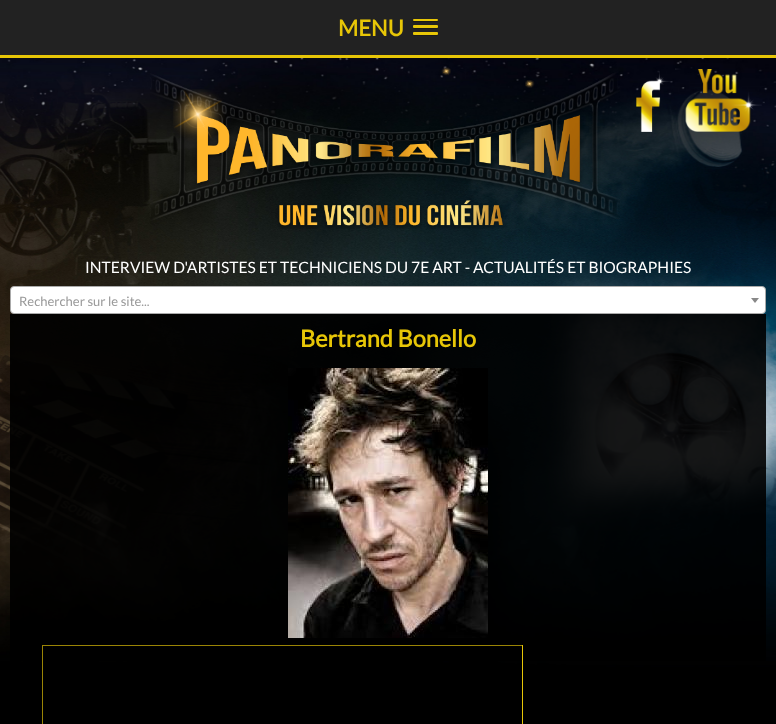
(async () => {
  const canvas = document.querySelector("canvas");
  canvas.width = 776;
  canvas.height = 724;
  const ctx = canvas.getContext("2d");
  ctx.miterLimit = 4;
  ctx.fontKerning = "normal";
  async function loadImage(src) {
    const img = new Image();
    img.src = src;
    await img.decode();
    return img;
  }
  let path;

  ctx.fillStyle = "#ffffff";
  ctx.fillRect(0, 0, 776, 724);
  ctx.drawImage(await loadImage("img/1.png"), 0, 58, 776, 666);
  ctx.fillStyle = "#222222";
  ctx.fillRect(0, 0, 776, 55);
  ctx.fillStyle = "#e7c607";
  ctx.fillRect(0, 55, 776, 3);
  ctx.fillStyle = "#1a1a1a";
  path = new Path2D("M413 20.5C412 22.5 415 22 418 22H437C438 22 438 21 438 20.5L437 21H414Z");
  ctx.fill(path);
  ctx.fillStyle = "#e7c607";
  ctx.beginPath();
  ctx.roundRect(413, 19, 25, 2, 1);
  ctx.fill();
  ctx.fillStyle = "#1a1a1a";
  path = new Path2D("M413 27C413 30 414.5 29 418 29H433C436.5 29 438 30 438 27C438 27.5 437.5 28 437 28H414C413.5 28 413 27.5 413 27Z");
  ctx.fill(path);
  ctx.fillStyle = "#e7c607";
  ctx.beginPath();
  ctx.roundRect(413, 25, 25, 3, 1);
  ctx.fill();
  ctx.fillStyle = "#1a1a1a";
  path = new Path2D("M413 34C413 37 414.5 36 418 36H433C436.5 36 438 37 438 34C438 34.5 437.5 35 437 35H414C413.5 35 413 34.5 413 34Z");
  ctx.fill(path);
  ctx.fillStyle = "#e7c607";
  ctx.beginPath();
  ctx.roundRect(413, 32, 25, 3, 1);
  ctx.fill();
  ctx.drawImage(await loadImage("img/2.png"), 636, 71, 35, 61);
  ctx.drawImage(await loadImage("img/3.png"), 675, 68, 87, 64);
  ctx.drawImage(await loadImage("img/4.png"), 150, 67, 470, 162);
  ctx.fillStyle = "#ffffff";
  ctx.beginPath();
  ctx.roundRect(10.5, 286.5, 755, 27, 3.5);
  ctx.fill();
  ctx.strokeStyle = "#aaaaaa";
  ctx.stroke();
  ctx.fillStyle = "#888888";
  path = new Path2D("M751 298H759L755 303Z");
  ctx.fill(path);
  ctx.fillStyle = "rgba(0, 0, 0, 0.9)";
  ctx.fillRect(10, 314, 756, 347);
  ctx.drawImage(await loadImage("img/5.png"), 288, 368, 200, 270);
  for (const [x, y, w, h, color] of [
    [42, 645, 481, 1, "#9a8405"],
    [42, 645, 1, 79, "#9a8405"],
    [522, 645, 1, 79, "#e7c607"],
  ]) {
    ctx.fillStyle = color;
    ctx.fillRect(x, y, w, h);
  }
  ctx.font = "bold 22px Lato";
  ctx.fillText("MENU", 338, 36);
  ctx.font = "15.6px Lato";
  ctx.fillStyle = "#ffffff";
  ctx.fillText("INTERVIEW D'ARTISTES ET TECHNICIENS DU 7E ART - ACTUALITÉS ET BIOGRAPHIES", 85, 273);
  ctx.font = "13px Lato";
  ctx.fillStyle = "#999999";
  ctx.fillText("Rechercher sur le site...", 19, 306);
  ctx.font = "bold 23.5px Lato";
  ctx.fillStyle = "#e7c607";
  ctx.fillText("Bertrand Bonello", 300, 347);
})();
